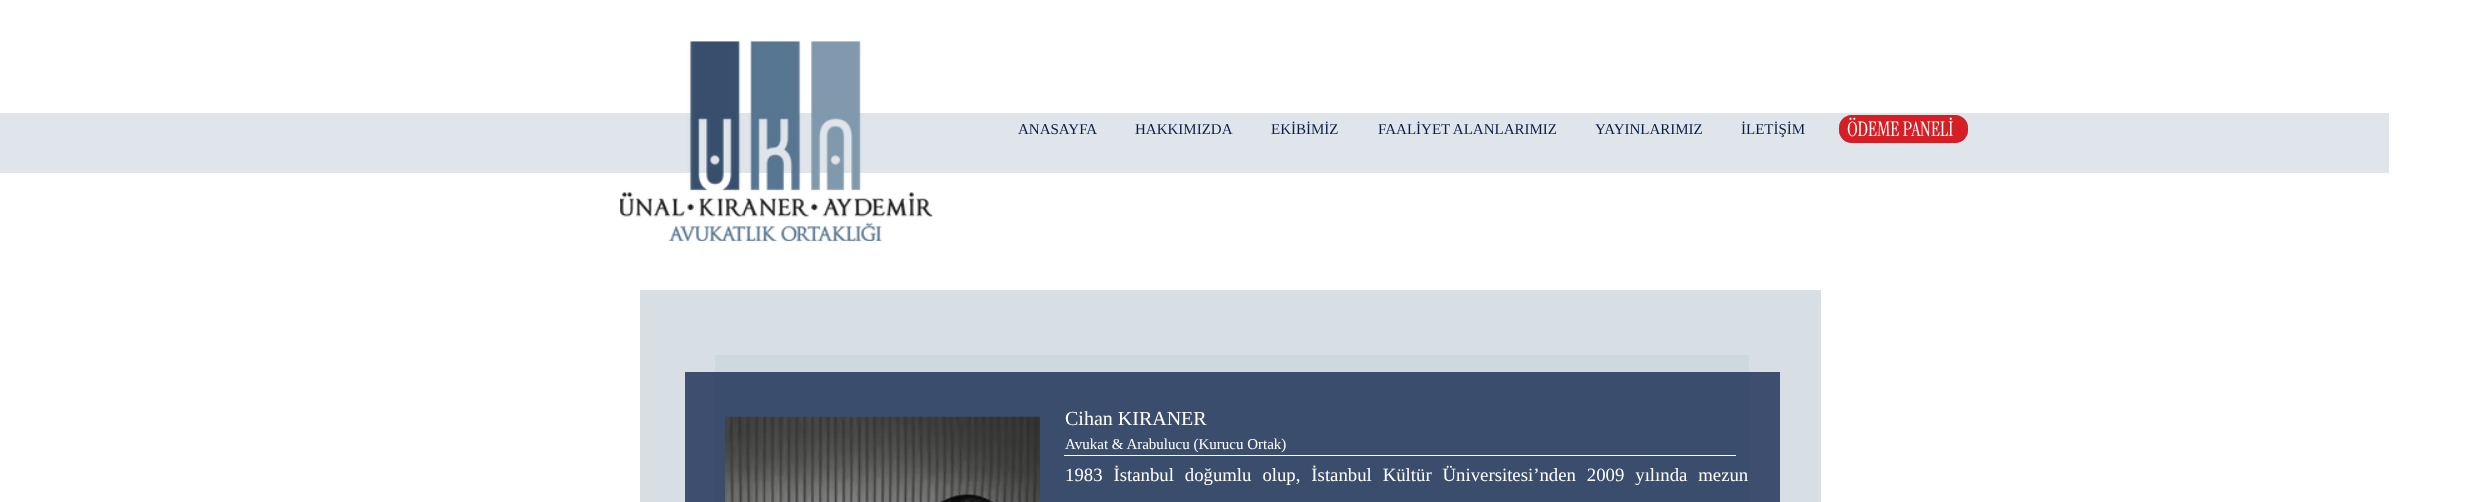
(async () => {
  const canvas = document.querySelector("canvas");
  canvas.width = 2465;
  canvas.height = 502;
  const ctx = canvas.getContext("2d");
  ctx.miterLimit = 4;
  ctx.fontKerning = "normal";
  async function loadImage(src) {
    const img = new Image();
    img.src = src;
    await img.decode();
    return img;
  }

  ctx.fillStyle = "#ffffff";
  ctx.fillRect(0, 0, 2465, 502);
  for (const [x, y, w, h, color] of [
    [640, 290, 1181, 212, "#d7dfe5"],
    [685, 372, 1095, 130, "#3d4e6f"],
    [0, 113, 2389, 60, "#dfe5ea"],
  ]) {
    ctx.fillStyle = color;
    ctx.fillRect(x, y, w, h);
  }
  ctx.drawImage(await loadImage("img/1.png"), 620, 41, 313, 201);
  ctx.fillStyle = "#4da2e9";
  ctx.beginPath();
  ctx.roundRect(1839, 115, 129, 28, 13);
  ctx.fill();
  ctx.fillStyle = "rgba(230, 16, 16, 0.9)";
  ctx.beginPath();
  ctx.roundRect(1839, 115, 129, 28, 13);
  ctx.fill();
  ctx.fillStyle = "#ced8df";
  ctx.fillRect(715, 355, 1034, 17);
  ctx.fillStyle = "#3a4d6d";
  ctx.fillRect(715, 372, 1034, 130);
  ctx.drawImage(await loadImage("img/2.png"), 725, 416, 315, 86);
  ctx.fillStyle = "#ffffff";
  ctx.fillRect(1064, 455, 672, 1);
  ctx.font = "15px Liberation Serif";
  ctx.fillStyle = "#091e47";
  for (const [text, x, y] of [
    ["ANASAYFA", 1018, 134],
    ["HAKKIMIZDA", 1135, 134],
    ["EKİBİMİZ", 1271, 134],
    ["FAALİYET ALANLARIMIZ", 1378, 134],
    ["YAYINLARIMIZ", 1595, 134],
    ["İLETİŞİM", 1741, 134],
  ]) {
    ctx.fillText(text, x, y);
  }
  ctx.font = "20px Instrument Serif";
  ctx.fillStyle = "#ffffff";
  ctx.fillText("ÖDEME PANELİ", 1847, 136);
  ctx.font = "20px Liberation Serif";
  ctx.fillText("Cihan KIRANER", 1065, 425);
  ctx.font = "15px Liberation Serif";
  ctx.fillText("Avukat & Arabulucu (Kurucu Ortak)", 1065, 449);
  ctx.wordSpacing = "6.25px";
  ctx.font = "18.75px Liberation Serif";
  ctx.fillText("1983 İstanbul doğumlu olup, İstanbul Kültür Üniversitesi’nden 2009 yılında mezun", 1065, 481);
})();
